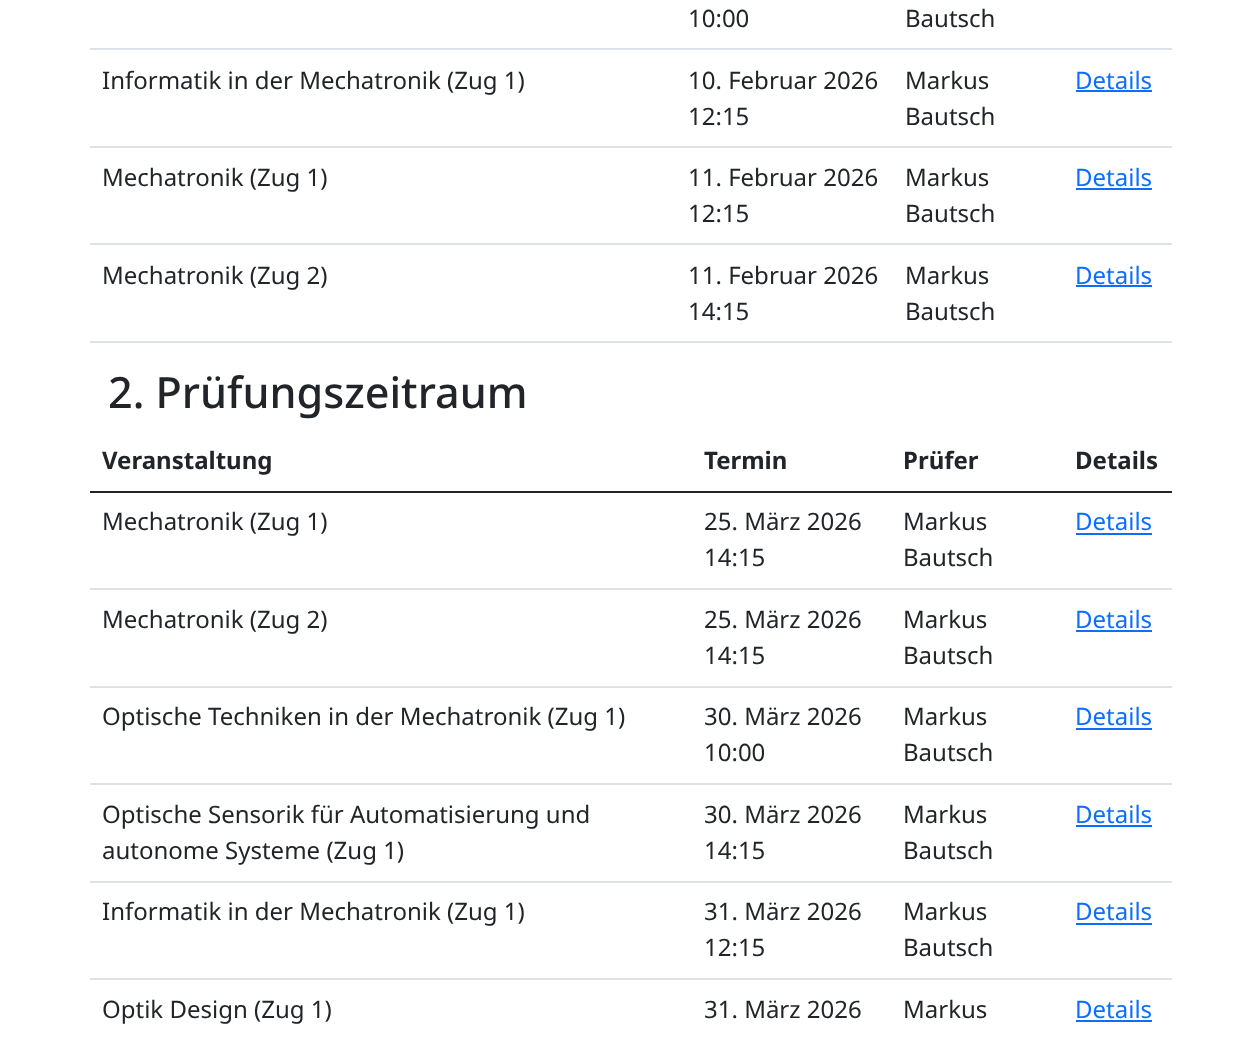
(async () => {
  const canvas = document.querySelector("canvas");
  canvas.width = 1259;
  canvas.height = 1046;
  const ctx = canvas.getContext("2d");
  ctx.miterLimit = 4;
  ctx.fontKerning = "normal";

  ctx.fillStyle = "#ffffff";
  ctx.fillRect(0, 0, 1259, 1046);
  for (const [x, y, w, h, color] of [
    [90, 48, 1082, 2, "#dee2e6"],
    [90, 146, 1082, 2, "#dee2e6"],
    [1076, 90, 76, 2, "#0d6efd"],
    [90, 243, 1082, 2, "#dee2e6"],
    [1076, 188, 76, 2, "#0d6efd"],
    [90, 341, 1082, 2, "#dee2e6"],
    [1076, 285, 76, 2, "#0d6efd"],
    [90, 491, 1082, 2, "#212529"],
    [90, 588, 1082, 2, "#dee2e6"],
    [1076, 533, 76, 2, "#0d6efd"],
    [90, 686, 1082, 2, "#dee2e6"],
    [1076, 630, 76, 2, "#0d6efd"],
    [90, 783, 1082, 2, "#dee2e6"],
    [1076, 728, 76, 2, "#0d6efd"],
    [90, 881, 1082, 2, "#dee2e6"],
    [1076, 825, 76, 2, "#0d6efd"],
    [90, 978, 1082, 2, "#dee2e6"],
    [1076, 923, 76, 2, "#0d6efd"],
    [1076, 1020, 76, 2, "#0d6efd"],
  ]) {
    ctx.fillStyle = color;
    ctx.fillRect(x, y, w, h);
  }
  ctx.font = "24px Noto Sans";
  ctx.fillStyle = "#212529";
  for (const [text, x, y] of [
    ["10:00", 688, 27],
    ["Bautsch", 905, 27],
    ["Informatik in der Mechatronik (Zug 1)", 102, 89],
    ["10. Februar 2026", 688, 89],
    ["12:15", 688, 125],
    ["Markus", 905, 89],
    ["Bautsch", 905, 125],
  ]) {
    ctx.fillText(text, x, y);
  }
  ctx.fillStyle = "#0d6efd";
  ctx.fillText("Details", 1075, 89);
  ctx.fillStyle = "#212529";
  for (const [text, x, y] of [
    ["Mechatronik (Zug 1)", 102, 186],
    ["11. Februar 2026", 688, 186],
    ["12:15", 688, 222],
    ["Markus", 905, 186],
    ["Bautsch", 905, 222],
  ]) {
    ctx.fillText(text, x, y);
  }
  ctx.fillStyle = "#0d6efd";
  ctx.fillText("Details", 1075, 186);
  ctx.fillStyle = "#212529";
  for (const [text, x, y] of [
    ["Mechatronik (Zug 2)", 102, 284],
    ["11. Februar 2026", 688, 284],
    ["14:15", 688, 320],
    ["Markus", 905, 284],
    ["Bautsch", 905, 320],
  ]) {
    ctx.fillText(text, x, y);
  }
  ctx.fillStyle = "#0d6efd";
  ctx.fillText("Details", 1075, 284);
  ctx.font = "500 43.1px Noto Sans";
  ctx.fillStyle = "#212529";
  ctx.fillText("2. Prüfungszeitraum", 108, 408);
  ctx.font = "bold 24px Noto Sans";
  for (const [text, x, y] of [
    ["Veranstaltung", 102, 469],
    ["Termin", 704, 469],
    ["Prüfer", 903, 469],
    ["Details", 1075, 469],
  ]) {
    ctx.fillText(text, x, y);
  }
  ctx.font = "24px Noto Sans";
  for (const [text, x, y] of [
    ["Mechatronik (Zug 1)", 102, 530],
    ["25. März 2026", 704, 530],
    ["14:15", 704, 566],
    ["Markus", 903, 530],
    ["Bautsch", 903, 566],
  ]) {
    ctx.fillText(text, x, y);
  }
  ctx.fillStyle = "#0d6efd";
  ctx.fillText("Details", 1075, 530);
  ctx.fillStyle = "#212529";
  for (const [text, x, y] of [
    ["Mechatronik (Zug 2)", 102, 628],
    ["25. März 2026", 704, 628],
    ["14:15", 704, 664],
    ["Markus", 903, 628],
    ["Bautsch", 903, 664],
  ]) {
    ctx.fillText(text, x, y);
  }
  ctx.fillStyle = "#0d6efd";
  ctx.fillText("Details", 1075, 628);
  ctx.fillStyle = "#212529";
  for (const [text, x, y] of [
    ["Optische Techniken in der Mechatronik (Zug 1)", 102, 725],
    ["30. März 2026", 704, 725],
    ["10:00", 704, 761],
    ["Markus", 903, 725],
    ["Bautsch", 903, 761],
  ]) {
    ctx.fillText(text, x, y);
  }
  ctx.fillStyle = "#0d6efd";
  ctx.fillText("Details", 1075, 725);
  ctx.fillStyle = "#212529";
  for (const [text, x, y] of [
    ["Optische Sensorik für Automatisierung und", 102, 823],
    ["autonome Systeme (Zug 1)", 102, 859],
    ["30. März 2026", 704, 823],
    ["14:15", 704, 859],
    ["Markus", 903, 823],
    ["Bautsch", 903, 859],
  ]) {
    ctx.fillText(text, x, y);
  }
  ctx.fillStyle = "#0d6efd";
  ctx.fillText("Details", 1075, 823);
  ctx.fillStyle = "#212529";
  for (const [text, x, y] of [
    ["Informatik in der Mechatronik (Zug 1)", 102, 920],
    ["31. März 2026", 704, 920],
    ["12:15", 704, 956],
    ["Markus", 903, 920],
    ["Bautsch", 903, 956],
  ]) {
    ctx.fillText(text, x, y);
  }
  ctx.fillStyle = "#0d6efd";
  ctx.fillText("Details", 1075, 920);
  ctx.fillStyle = "#212529";
  for (const [text, x, y] of [
    ["Optik Design (Zug 1)", 102, 1018],
    ["31. März 2026", 704, 1018],
    ["Markus", 903, 1018],
  ]) {
    ctx.fillText(text, x, y);
  }
  ctx.fillStyle = "#0d6efd";
  ctx.fillText("Details", 1075, 1018);
})();
